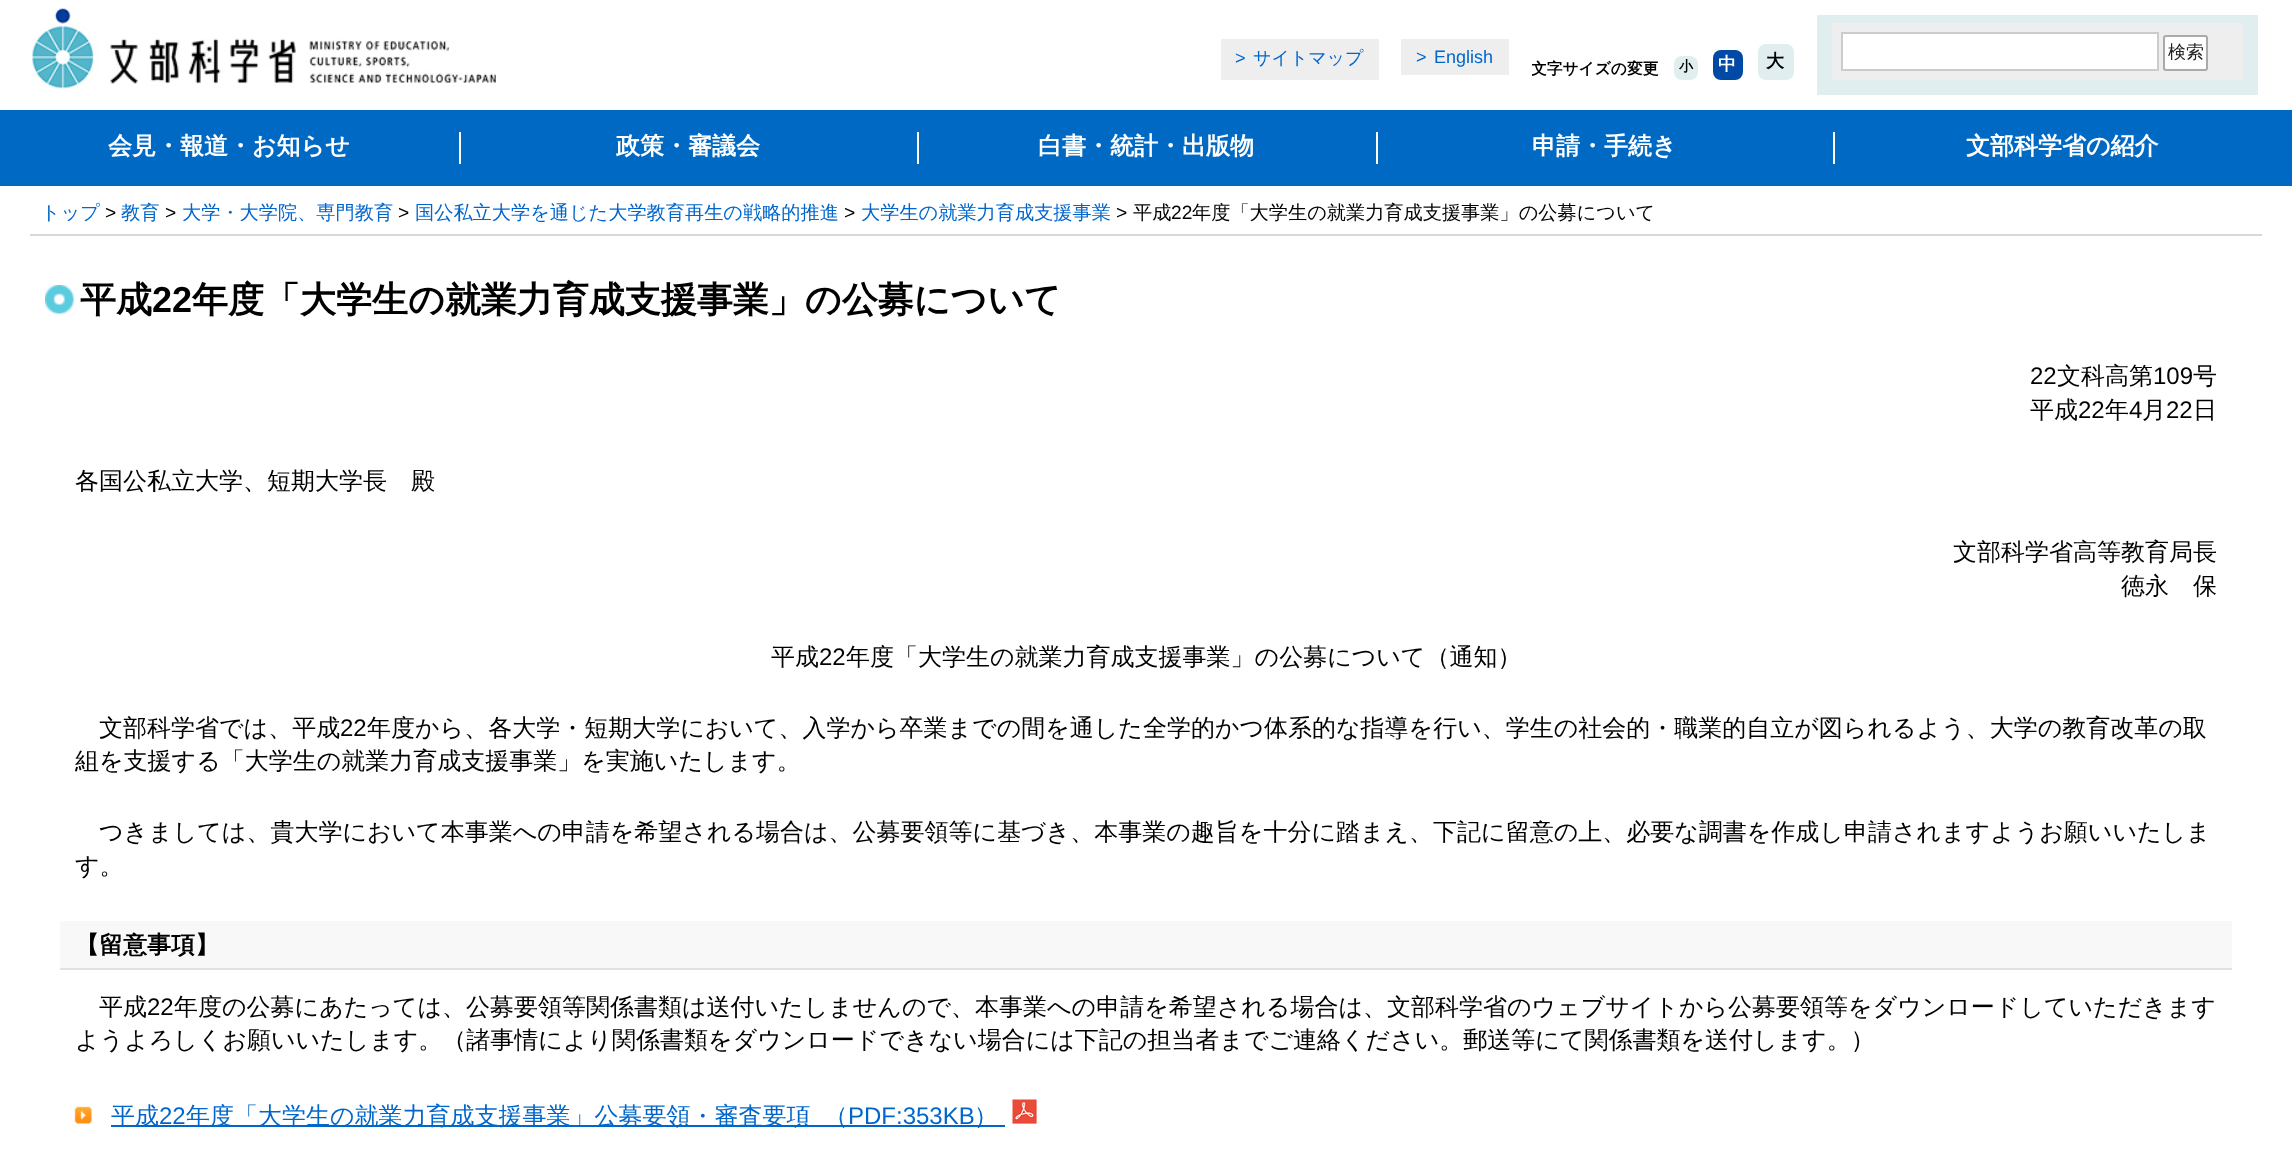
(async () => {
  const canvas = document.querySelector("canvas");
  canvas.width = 2292;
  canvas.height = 1171;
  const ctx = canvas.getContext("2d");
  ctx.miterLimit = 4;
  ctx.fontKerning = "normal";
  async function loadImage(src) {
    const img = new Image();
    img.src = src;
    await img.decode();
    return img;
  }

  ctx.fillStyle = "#ffffff";
  ctx.fillRect(0, 0, 2292, 1171);
  ctx.drawImage(await loadImage("img/1.png"), 30, 8, 466, 81);
  ctx.fillStyle = "#eeeeee";
  ctx.fillRect(1221, 39, 158, 41);
  ctx.fillRect(1401, 39, 108, 36);
  ctx.fillStyle = "#e1eef0";
  ctx.beginPath();
  ctx.roundRect(1674, 56, 24, 24, 8);
  ctx.fill();
  ctx.fillStyle = "#004aa6";
  ctx.beginPath();
  ctx.roundRect(1713, 50, 30, 30, 8);
  ctx.fill();
  ctx.fillStyle = "#e1eef0";
  ctx.beginPath();
  ctx.roundRect(1758, 44, 36, 36, 8);
  ctx.fill();
  ctx.fillRect(1817, 15, 441, 80);
  ctx.fillStyle = "#eeeeee";
  ctx.fillRect(1832, 23, 411, 57);
  ctx.fillStyle = "#ffffff";
  ctx.beginPath();
  ctx.rect(1842, 33, 316, 37);
  ctx.fill();
  ctx.strokeStyle = "#cccccc";
  ctx.lineWidth = 2;
  ctx.stroke();
  ctx.fillStyle = "#fefefe";
  ctx.beginPath();
  ctx.roundRect(2164, 36, 43, 34, 2);
  ctx.fill();
  ctx.strokeStyle = "#aaaaaa";
  ctx.stroke();
  for (const [x, y, w, h, color] of [
    [0, 110, 2292, 76, "#0069c3"],
    [459, 132, 2, 32, "#ffffff"],
    [917, 132, 2, 32, "#ffffff"],
    [1376, 132, 2, 32, "#ffffff"],
    [1833, 132, 2, 32, "#ffffff"],
    [30, 234, 2232, 2, "#d7d7d7"],
  ]) {
    ctx.fillStyle = color;
    ctx.fillRect(x, y, w, h);
  }
  ctx.drawImage(await loadImage("img/2.png"), 45, 285, 29, 29);
  ctx.fillStyle = "#f8f8f8";
  ctx.fillRect(60, 921, 2172, 47);
  ctx.fillStyle = "#e1e1e1";
  ctx.fillRect(60, 968, 2172, 2);
  ctx.drawImage(await loadImage("img/3.png"), 74, 1106, 18, 18);
  ctx.fillStyle = "#0066cc";
  ctx.fillRect(111, 1125, 894, 2);
  ctx.drawImage(await loadImage("img/4.png"), 1012, 1099, 25, 25);
  ctx.font = "18px Liberation Sans";
  ctx.fillText(">", 1235, 64);
  ctx.font = "500 18px WenQuanYi Zen Hei";
  ctx.fillText("サイトマップ", 1253, 64);
  ctx.font = "18px Liberation Sans";
  ctx.fillText(">", 1416, 63);
  ctx.fillText("English", 1434, 63);
  ctx.save();
  ctx.beginPath();
  ctx.rect(1532, 44, 262, 36);
  ctx.clip();
  ctx.font = "bold 15.75px WenQuanYi Zen Hei";
  ctx.fillStyle = "#000000";
  ctx.fillText("文字サイズの変更", 1531, 74);
  ctx.restore();
  ctx.font = "bold 14px WenQuanYi Zen Hei";
  ctx.fillStyle = "#000000";
  ctx.fillText("小", 1679, 71);
  ctx.font = "bold 18px WenQuanYi Zen Hei";
  ctx.fillStyle = "#ffffff";
  ctx.fillText("中", 1718, 70);
  ctx.fillStyle = "#000000";
  ctx.fillText("大", 1766, 67);
  ctx.font = "500 18px WenQuanYi Zen Hei";
  ctx.fillStyle = "#222222";
  ctx.fillText("検索", 2168, 58);
  ctx.font = "bold 24px WenQuanYi Zen Hei";
  ctx.fillStyle = "#ffffff";
  for (const [text, x, y] of [
    ["会見・報道・お知らせ", 108, 154],
    ["政策・審議会", 616, 154],
    ["白書・統計・出版物", 1038, 154],
    ["申請・手続き", 1532, 154],
    ["文部科学省の紹介", 1966, 154],
  ]) {
    ctx.fillText(text, x, y);
  }
  ctx.font = "500 19.2px WenQuanYi Zen Hei";
  ctx.fillStyle = "#0066cc";
  ctx.fillText("トップ", 41, 219);
  ctx.font = "19.2px Liberation Sans";
  ctx.fillStyle = "#000000";
  ctx.fillText(">", 105, 219);
  ctx.font = "500 19.2px WenQuanYi Zen Hei";
  ctx.fillStyle = "#0066cc";
  ctx.fillText("教育", 121, 219);
  ctx.font = "19.2px Liberation Sans";
  ctx.fillStyle = "#000000";
  ctx.fillText(">", 165, 219);
  ctx.font = "500 19.2px WenQuanYi Zen Hei";
  ctx.fillStyle = "#0066cc";
  ctx.fillText("大学・大学院、専門教育", 182, 219);
  ctx.font = "19.2px Liberation Sans";
  ctx.fillStyle = "#000000";
  ctx.fillText(">", 398, 219);
  ctx.font = "500 19.2px WenQuanYi Zen Hei";
  ctx.fillStyle = "#0066cc";
  ctx.fillText("国公私立大学を通じた大学教育再生の戦略的推進", 415, 219);
  ctx.font = "19.2px Liberation Sans";
  ctx.fillStyle = "#000000";
  ctx.fillText(">", 844, 219);
  ctx.font = "500 19.2px WenQuanYi Zen Hei";
  ctx.fillStyle = "#0066cc";
  ctx.fillText("大学生の就業力育成支援事業", 861, 219);
  ctx.font = "19.2px Liberation Sans";
  ctx.fillStyle = "#000000";
  ctx.fillText(">", 1116, 219);
  ctx.font = "500 19.2px WenQuanYi Zen Hei";
  ctx.fillText("平成", 1133, 219);
  ctx.font = "19.2px Liberation Sans";
  ctx.fillText("22", 1171, 219);
  ctx.font = "500 19.2px WenQuanYi Zen Hei";
  ctx.fillText("年度「大学生の就業力育成支援事業」の公募について", 1192, 219);
  ctx.font = "bold 36px WenQuanYi Zen Hei";
  ctx.fillText("平成", 80, 312);
  ctx.font = "bold 36px Liberation Sans";
  ctx.fillText("22", 152, 312);
  ctx.font = "bold 36px WenQuanYi Zen Hei";
  ctx.fillText("年度「大学生の就業力育成支援事業」の公募について", 192, 312);
  ctx.font = "24px Liberation Sans";
  ctx.fillText("22", 2030, 384);
  ctx.font = "500 24px WenQuanYi Zen Hei";
  ctx.fillText("文科高第", 2057, 384);
  ctx.font = "24px Liberation Sans";
  ctx.fillText("109", 2153, 384);
  ctx.font = "500 24px WenQuanYi Zen Hei";
  ctx.fillText("号", 2193, 384);
  ctx.fillText("平成", 2030, 418);
  ctx.font = "24px Liberation Sans";
  ctx.fillText("22", 2078, 418);
  ctx.font = "500 24px WenQuanYi Zen Hei";
  ctx.fillText("年", 2105, 418);
  ctx.font = "24px Liberation Sans";
  ctx.fillText("4", 2129, 418);
  ctx.font = "500 24px WenQuanYi Zen Hei";
  ctx.fillText("月", 2142, 418);
  ctx.font = "24px Liberation Sans";
  ctx.fillText("22", 2166, 418);
  ctx.font = "500 24px WenQuanYi Zen Hei";
  for (const [text, x, y] of [
    ["日", 2193, 418],
    ["各国公私立大学、短期大学長　殿", 75, 489],
    ["文部科学省高等教育局長", 1953, 560],
    ["徳永　保", 2121, 594],
    ["平成", 771, 665],
  ]) {
    ctx.fillText(text, x, y);
  }
  ctx.font = "24px Liberation Sans";
  ctx.fillText("22", 819, 665);
  ctx.font = "500 24px WenQuanYi Zen Hei";
  ctx.fillText("年度「大学生の就業力育成支援事業」の公募について（通知）", 846, 665);
  ctx.fillText("文部科学省では、平成", 99, 736);
  ctx.font = "24px Liberation Sans";
  ctx.fillText("22", 340, 736);
  ctx.font = "500 24px WenQuanYi Zen Hei";
  for (const [text, x, y] of [
    ["年度から、各大学・短期大学において、入学から卒業までの間を通した全学的かつ体系的な指導を行い、学生の社会的・職業的自立が図られるよう、大学の教育改革の取", 367, 736],
    ["組を支援する「大学生の就業力育成支援事業」を実施いたします。", 75, 769],
    ["つきましては、貴大学において本事業への申請を希望される場合は、公募要領等に基づき、本事業の趣旨を十分に踏まえ、下記に留意の上、必要な調書を作成し申請されますようお願いいたしま", 99, 840],
    ["す。", 75, 874],
  ]) {
    ctx.fillText(text, x, y);
  }
  ctx.font = "bold 24px WenQuanYi Zen Hei";
  ctx.fillText("【留意事項】", 75, 953);
  ctx.font = "500 24px WenQuanYi Zen Hei";
  ctx.fillText("平成", 99, 1015);
  ctx.font = "24px Liberation Sans";
  ctx.fillText("22", 147, 1015);
  ctx.font = "500 24px WenQuanYi Zen Hei";
  ctx.fillText("年度の公募にあたっては、公募要領等関係書類は送付いたしませんので、本事業への申請を希望される場合は、文部科学省のウェブサイトから公募要領等をダウンロードしていただきます", 174, 1015);
  ctx.fillText("ようよろしくお願いいたします。（諸事情により関係書類をダウンロードできない場合には下記の担当者までご連絡ください。郵送等にて関係書類を送付します。）", 75, 1048);
  ctx.fillStyle = "#0066cc";
  ctx.fillText("平成", 111, 1124);
  ctx.font = "24px Liberation Sans";
  ctx.fillText("22", 159, 1124);
  ctx.font = "500 24px WenQuanYi Zen Hei";
  ctx.fillText("年度「大学生の就業力育成支援事業」公募要領・審査要項", 186, 1124);
  ctx.fillText("（", 824, 1124);
  ctx.font = "24px Liberation Sans";
  ctx.fillText("PDF:353KB", 848, 1124);
  ctx.font = "500 24px WenQuanYi Zen Hei";
  ctx.fillText("）", 974, 1124);
})();
